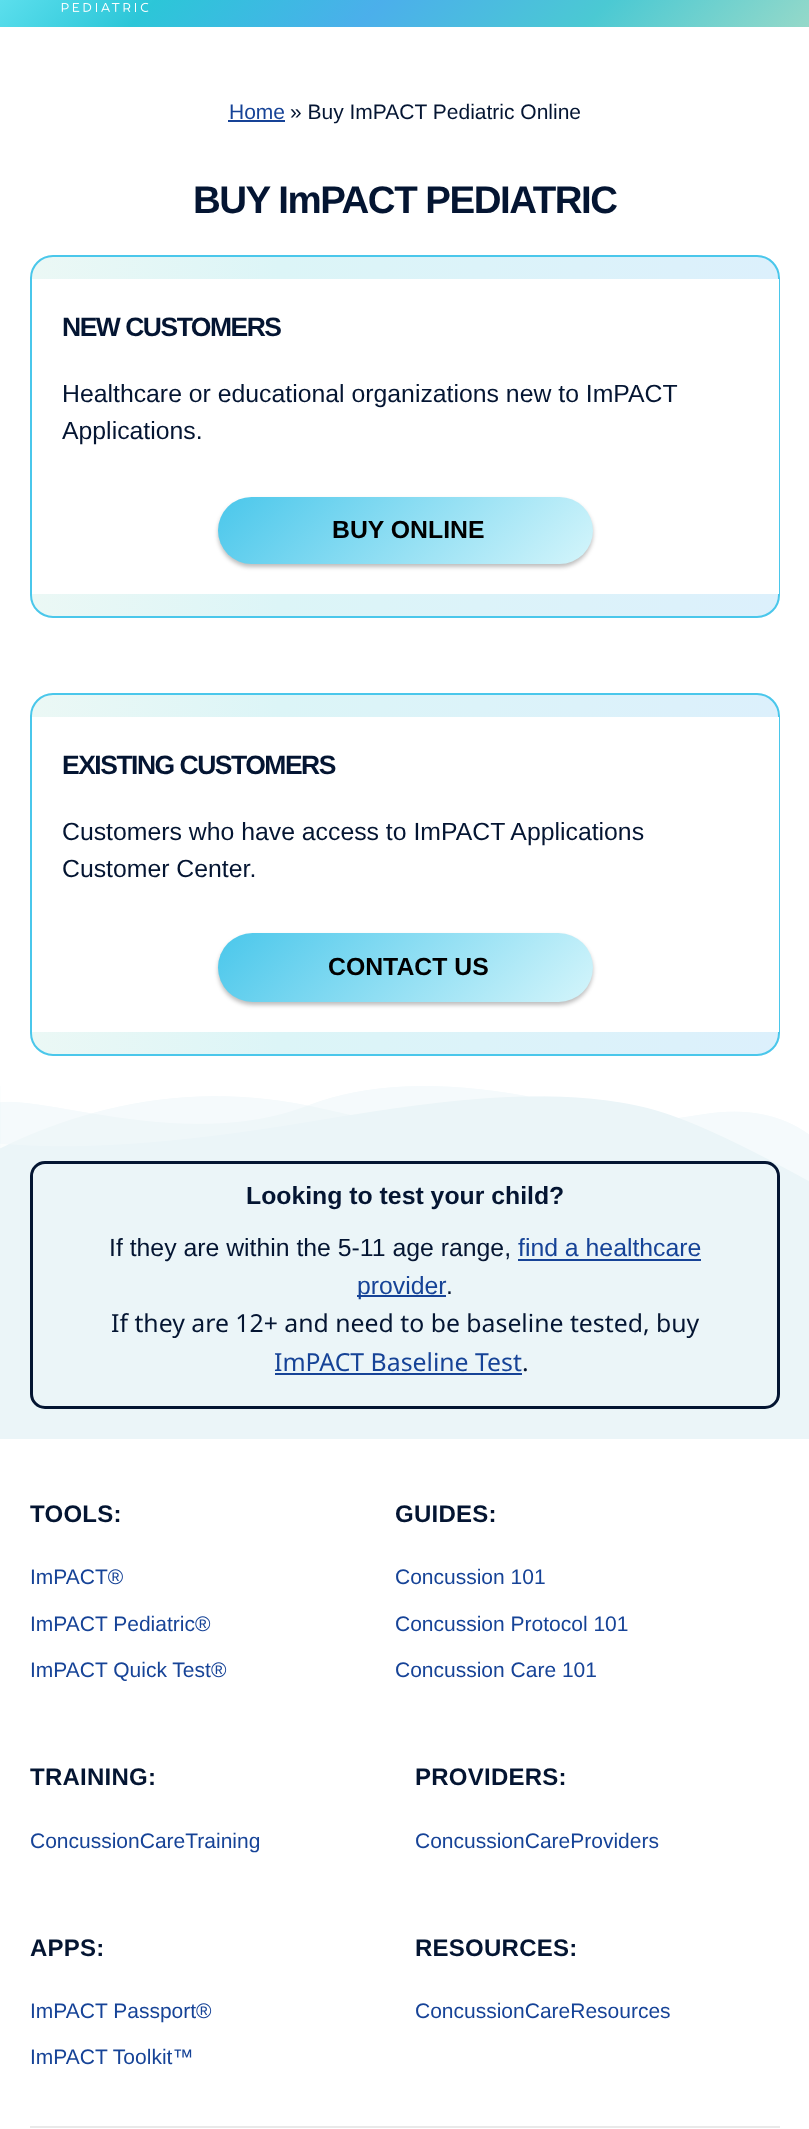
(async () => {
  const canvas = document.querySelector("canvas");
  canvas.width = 809;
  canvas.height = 2129;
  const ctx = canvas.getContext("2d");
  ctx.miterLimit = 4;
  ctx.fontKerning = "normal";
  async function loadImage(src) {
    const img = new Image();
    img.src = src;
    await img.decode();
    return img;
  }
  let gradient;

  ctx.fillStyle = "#ffffff";
  ctx.fillRect(0, 0, 809, 2129);
  gradient = ctx.createLinearGradient(177, -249, 633, 206);
  gradient.addColorStop(0, "#71eaf6");
  gradient.addColorStop(0.25, "#2cc6d8");
  gradient.addColorStop(0.5, "#4bafeb");
  gradient.addColorStop(0.75, "#4bc9d3");
  gradient.addColorStop(1, "#96d9c9");
  ctx.fillStyle = gradient;
  ctx.fillRect(0, 0, 809, 27);
  ctx.drawImage(await loadImage("img/1.png"), 61, 2, 88, 10);
  ctx.fillStyle = "#164397";
  ctx.fillRect(228, 120, 57, 2);
  ctx.save();
  ctx.beginPath();
  ctx.roundRect(30, 255, 750, 363, 23);
  ctx.clip();
  gradient = ctx.createLinearGradient(32, 437, 779, 437);
  gradient.addColorStop(0, "#ebf8f5");
  gradient.addColorStop(0.33, "#dcf5f7");
  gradient.addColorStop(1, "#dcf0fc");
  ctx.fillStyle = gradient;
  ctx.fillRect(32, 255, 747, 363);
  ctx.restore();
  ctx.beginPath();
  ctx.roundRect(31, 256, 748, 361, 22);
  ctx.strokeStyle = "#4ac7eb";
  ctx.lineWidth = 2;
  ctx.stroke();
  ctx.fillStyle = "#ffffff";
  ctx.fillRect(32, 279, 747, 315);
  ctx.fillStyle = "rgba(0, 0, 0, 0.26)";
  ctx.filter = "blur(2px)";
  ctx.beginPath();
  ctx.roundRect(218, 500, 375, 67, 33.5);
  ctx.fill();
  ctx.filter = "none";
  gradient = ctx.createLinearGradient(294, 420, 516, 641);
  gradient.addColorStop(0, "#4ac7eb");
  gradient.addColorStop(1, "#d4f5fb");
  ctx.fillStyle = gradient;
  ctx.beginPath();
  ctx.roundRect(218, 497, 375, 67, 33.5);
  ctx.fill();
  ctx.save();
  ctx.beginPath();
  ctx.roundRect(30, 693, 750, 363, 23);
  ctx.clip();
  gradient = ctx.createLinearGradient(32, 875, 779, 875);
  gradient.addColorStop(0, "#ebf8f5");
  gradient.addColorStop(0.33, "#dcf5f7");
  gradient.addColorStop(1, "#dcf0fc");
  ctx.fillStyle = gradient;
  ctx.fillRect(32, 693, 747, 363);
  ctx.restore();
  ctx.beginPath();
  ctx.roundRect(31, 694, 748, 361, 22);
  ctx.stroke();
  ctx.fillStyle = "#ffffff";
  ctx.fillRect(32, 717, 747, 315);
  ctx.fillStyle = "rgba(0, 0, 0, 0.26)";
  ctx.filter = "blur(2px)";
  ctx.beginPath();
  ctx.roundRect(218, 936, 375, 69, 34.5);
  ctx.fill();
  ctx.filter = "none";
  gradient = ctx.createLinearGradient(294, 857, 516, 1079);
  gradient.addColorStop(0, "#4ac7eb");
  gradient.addColorStop(1, "#d4f5fb");
  ctx.fillStyle = gradient;
  ctx.beginPath();
  ctx.roundRect(218, 933, 375, 69, 34.5);
  ctx.fill();
  ctx.fillStyle = "#ebf5f8";
  ctx.fillRect(0, 1086, 809, 353);
  ctx.drawImage(await loadImage("img/2.png"), 0, 1086, 809, 95);
  ctx.beginPath();
  ctx.roundRect(31.5, 1162.5, 747, 245, 13.5);
  ctx.strokeStyle = "#041532";
  ctx.lineWidth = 3;
  ctx.stroke();
  for (const [x, y, w, h, color] of [
    [518, 1259, 183, 2, "#164397"],
    [357, 1295, 89, 2, "#164397"],
    [275, 1373, 247, 2, "#164397"],
    [30, 2126, 750, 2, "#e9e9e9"],
  ]) {
    ctx.fillStyle = color;
    ctx.fillRect(x, y, w, h);
  }
  ctx.font = "21px Liberation Sans";
  ctx.fillStyle = "#164397";
  ctx.fillText("Home", 229, 119);
  ctx.fillStyle = "#041532";
  ctx.fillText("» Buy ImPACT Pediatric Online", 290, 119);
  ctx.letterSpacing = "-1.5px";
  ctx.font = "bold 38.5px Liberation Sans";
  ctx.fillText("BUY ImPACT PEDIATRIC", 193, 213);
  ctx.font = "bold 26.5px Liberation Sans";
  ctx.fillText("NEW CUSTOMERS", 62, 336);
  ctx.letterSpacing = "0px";
  ctx.font = "24.8px Liberation Sans";
  ctx.fillText("Healthcare or educational organizations new to ImPACT", 62, 402);
  ctx.fillText("Applications.", 62, 439);
  ctx.font = "bold 24.8px Liberation Sans";
  ctx.fillStyle = "#000000";
  ctx.fillText("BUY ONLINE", 332, 538);
  ctx.letterSpacing = "-1.5px";
  ctx.font = "bold 26.5px Liberation Sans";
  ctx.fillStyle = "#041532";
  ctx.fillText("EXISTING CUSTOMERS", 62, 774);
  ctx.letterSpacing = "0px";
  ctx.font = "24.8px Liberation Sans";
  ctx.fillText("Customers who have access to ImPACT Applications", 62, 840);
  ctx.fillText("Customer Center.", 62, 877);
  ctx.font = "bold 24.8px Liberation Sans";
  ctx.fillStyle = "#000000";
  ctx.fillText("CONTACT US", 328, 975);
  ctx.fillStyle = "#041532";
  ctx.fillText("Looking to test your child?", 246, 1204);
  ctx.font = "24.8px Liberation Sans";
  ctx.fillText("If they are within the 5-11 age range,", 109, 1256);
  ctx.fillStyle = "#164397";
  ctx.fillText("find a healthcare", 518, 1256);
  ctx.fillText("provider", 357, 1294);
  ctx.fillStyle = "#041532";
  ctx.fillText(".", 446, 1294);
  ctx.font = "24.8px Noto Sans";
  ctx.fillText("If they are 12+ and need to be baseline tested, buy", 111, 1332);
  ctx.fillStyle = "#164397";
  ctx.fillText("ImPACT Baseline Test", 274, 1371);
  ctx.fillStyle = "#041532";
  ctx.fillText(".", 522, 1371);
  ctx.letterSpacing = "0.25px";
  ctx.font = "bold 24px Liberation Sans";
  ctx.fillText("TOOLS:", 30, 1522);
  ctx.letterSpacing = "0px";
  ctx.font = "21px Liberation Sans";
  ctx.fillStyle = "#164397";
  for (const [text, x, y] of [
    ["ImPACT®", 30, 1584],
    ["ImPACT Pediatric®", 30, 1631],
    ["ImPACT Quick Test®", 30, 1677],
  ]) {
    ctx.fillText(text, x, y);
  }
  ctx.letterSpacing = "0.25px";
  ctx.font = "bold 24px Liberation Sans";
  ctx.fillStyle = "#041532";
  ctx.fillText("GUIDES:", 395, 1522);
  ctx.letterSpacing = "0px";
  ctx.font = "21px Liberation Sans";
  ctx.fillStyle = "#164397";
  for (const [text, x, y] of [
    ["Concussion 101", 395, 1584],
    ["Concussion Protocol 101", 395, 1631],
    ["Concussion Care 101", 395, 1677],
  ]) {
    ctx.fillText(text, x, y);
  }
  ctx.letterSpacing = "0.25px";
  ctx.font = "bold 24px Liberation Sans";
  ctx.fillStyle = "#041532";
  ctx.fillText("TRAINING:", 30, 1785);
  ctx.letterSpacing = "0px";
  ctx.font = "21px Liberation Sans";
  ctx.fillStyle = "#164397";
  ctx.fillText("ConcussionCareTraining", 30, 1848);
  ctx.letterSpacing = "0.25px";
  ctx.font = "bold 24px Liberation Sans";
  ctx.fillStyle = "#041532";
  ctx.fillText("APPS:", 30, 1956);
  ctx.letterSpacing = "0px";
  ctx.font = "21px Liberation Sans";
  ctx.fillStyle = "#164397";
  ctx.fillText("ImPACT Passport®", 30, 2018);
  ctx.fillText("ImPACT Toolkit™", 30, 2064);
  ctx.letterSpacing = "0.25px";
  ctx.font = "bold 24px Liberation Sans";
  ctx.fillStyle = "#041532";
  ctx.fillText("PROVIDERS:", 415, 1785);
  ctx.letterSpacing = "0px";
  ctx.font = "21px Liberation Sans";
  ctx.fillStyle = "#164397";
  ctx.fillText("ConcussionCareProviders", 415, 1848);
  ctx.letterSpacing = "0.25px";
  ctx.font = "bold 24px Liberation Sans";
  ctx.fillStyle = "#041532";
  ctx.fillText("RESOURCES:", 415, 1956);
  ctx.letterSpacing = "0px";
  ctx.font = "21px Liberation Sans";
  ctx.fillStyle = "#164397";
  ctx.fillText("ConcussionCareResources", 415, 2018);
})();
